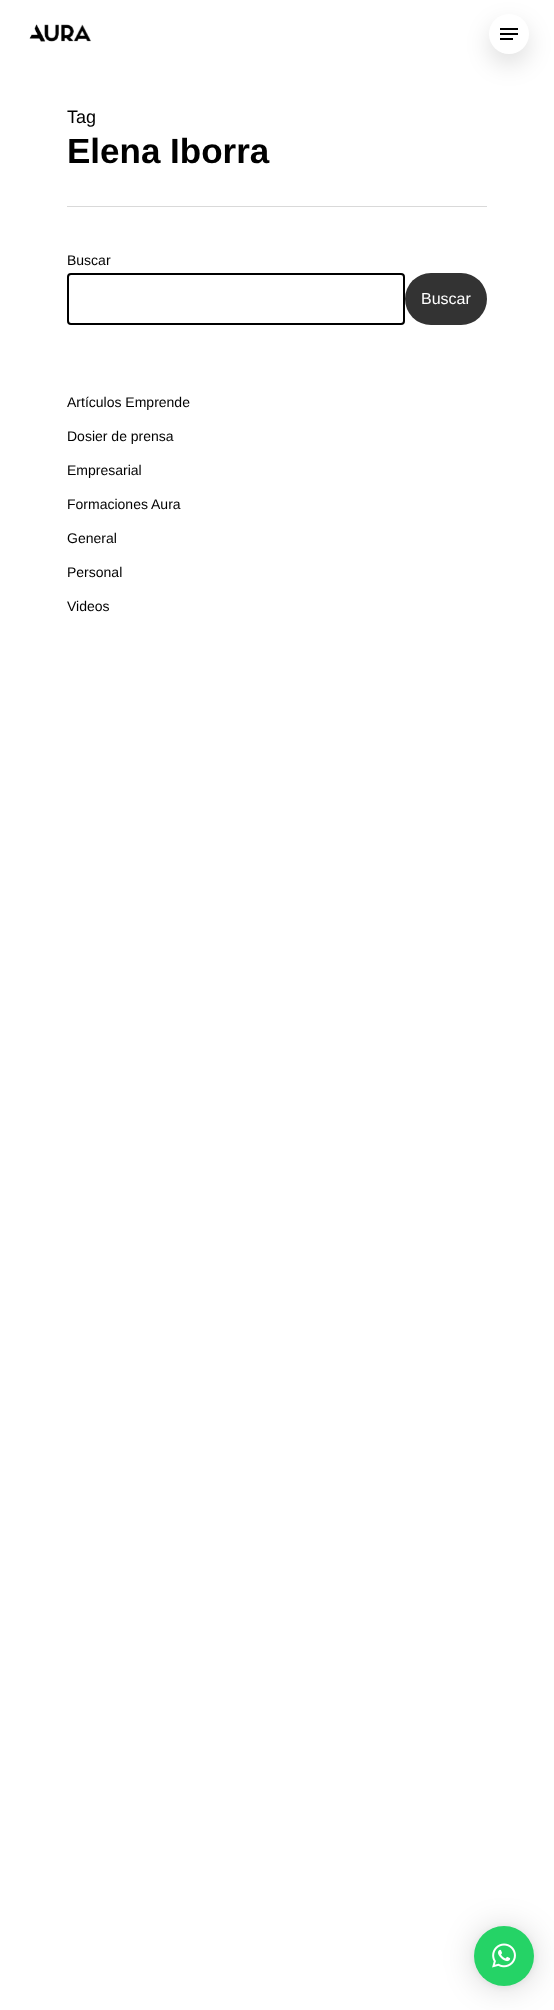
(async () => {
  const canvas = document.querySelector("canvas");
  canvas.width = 554;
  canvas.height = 2010;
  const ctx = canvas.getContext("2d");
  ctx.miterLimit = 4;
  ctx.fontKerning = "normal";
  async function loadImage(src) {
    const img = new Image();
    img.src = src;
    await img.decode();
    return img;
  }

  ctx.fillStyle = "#ffffff";
  ctx.fillRect(0, 0, 554, 2010);
  ctx.drawImage(await loadImage("img/1.png"), 29, 24, 63, 18);
  ctx.fillStyle = "rgba(0, 0, 0, 0.13)";
  ctx.filter = "blur(12.5px)";
  ctx.beginPath();
  ctx.roundRect(489, 24, 40, 40, 20);
  ctx.fill();
  ctx.filter = "none";
  ctx.fillStyle = "#ffffff";
  ctx.beginPath();
  ctx.arc(509, 34, 20, 0, Math.PI * 2);
  ctx.fill();
  for (const [x, y, w, h, color] of [
    [500, 28, 18, 2, "#000000"],
    [500, 38, 13, 2, "#000000"],
    [500, 33, 18, 2, "#000000"],
    [67, 206, 420, 1, "#d9d9d9"],
  ]) {
    ctx.fillStyle = color;
    ctx.fillRect(x, y, w, h);
  }
  ctx.beginPath();
  ctx.roundRect(68, 274, 336, 50, 3);
  ctx.strokeStyle = "#000000";
  ctx.lineWidth = 2;
  ctx.stroke();
  ctx.fillStyle = "#333333";
  ctx.beginPath();
  ctx.roundRect(405, 273, 82, 52, 26);
  ctx.fill();
  ctx.fillStyle = "rgba(0, 0, 0, 0.16)";
  ctx.filter = "blur(16px)";
  ctx.beginPath();
  ctx.roundRect(474, 1928, 60, 60, 30);
  ctx.fill();
  ctx.filter = "none";
  ctx.fillStyle = "rgba(0, 0, 0, 0.06)";
  ctx.filter = "blur(3px)";
  ctx.beginPath();
  ctx.roundRect(474, 1927, 60, 60, 30);
  ctx.fill();
  ctx.filter = "none";
  ctx.fillStyle = "#25d366";
  ctx.beginPath();
  ctx.arc(504, 1956, 30, 0, Math.PI * 2);
  ctx.fill();
  ctx.drawImage(await loadImage("img/2.png"), 492, 1943, 24, 25);
  ctx.font = "18px Liberation Sans";
  ctx.fillStyle = "#000000";
  ctx.fillText("Tag", 67, 123);
  ctx.font = "bold 35px Liberation Sans";
  ctx.fillText("Elena Iborra", 67, 163);
  ctx.font = "14px Liberation Sans";
  ctx.fillText("Buscar", 67, 265);
  ctx.font = "16px Liberation Sans";
  ctx.fillStyle = "#ffffff";
  ctx.fillText("Buscar", 421, 304);
  ctx.font = "14px Liberation Sans";
  ctx.fillStyle = "#000000";
  for (const [text, x, y] of [
    ["Artículos Emprende", 67, 407],
    ["Dosier de prensa", 67, 441],
    ["Empresarial", 67, 475],
    ["Formaciones Aura", 67, 509],
    ["General", 67, 543],
    ["Personal", 67, 577],
    ["Videos", 67, 611],
  ]) {
    ctx.fillText(text, x, y);
  }
})();
